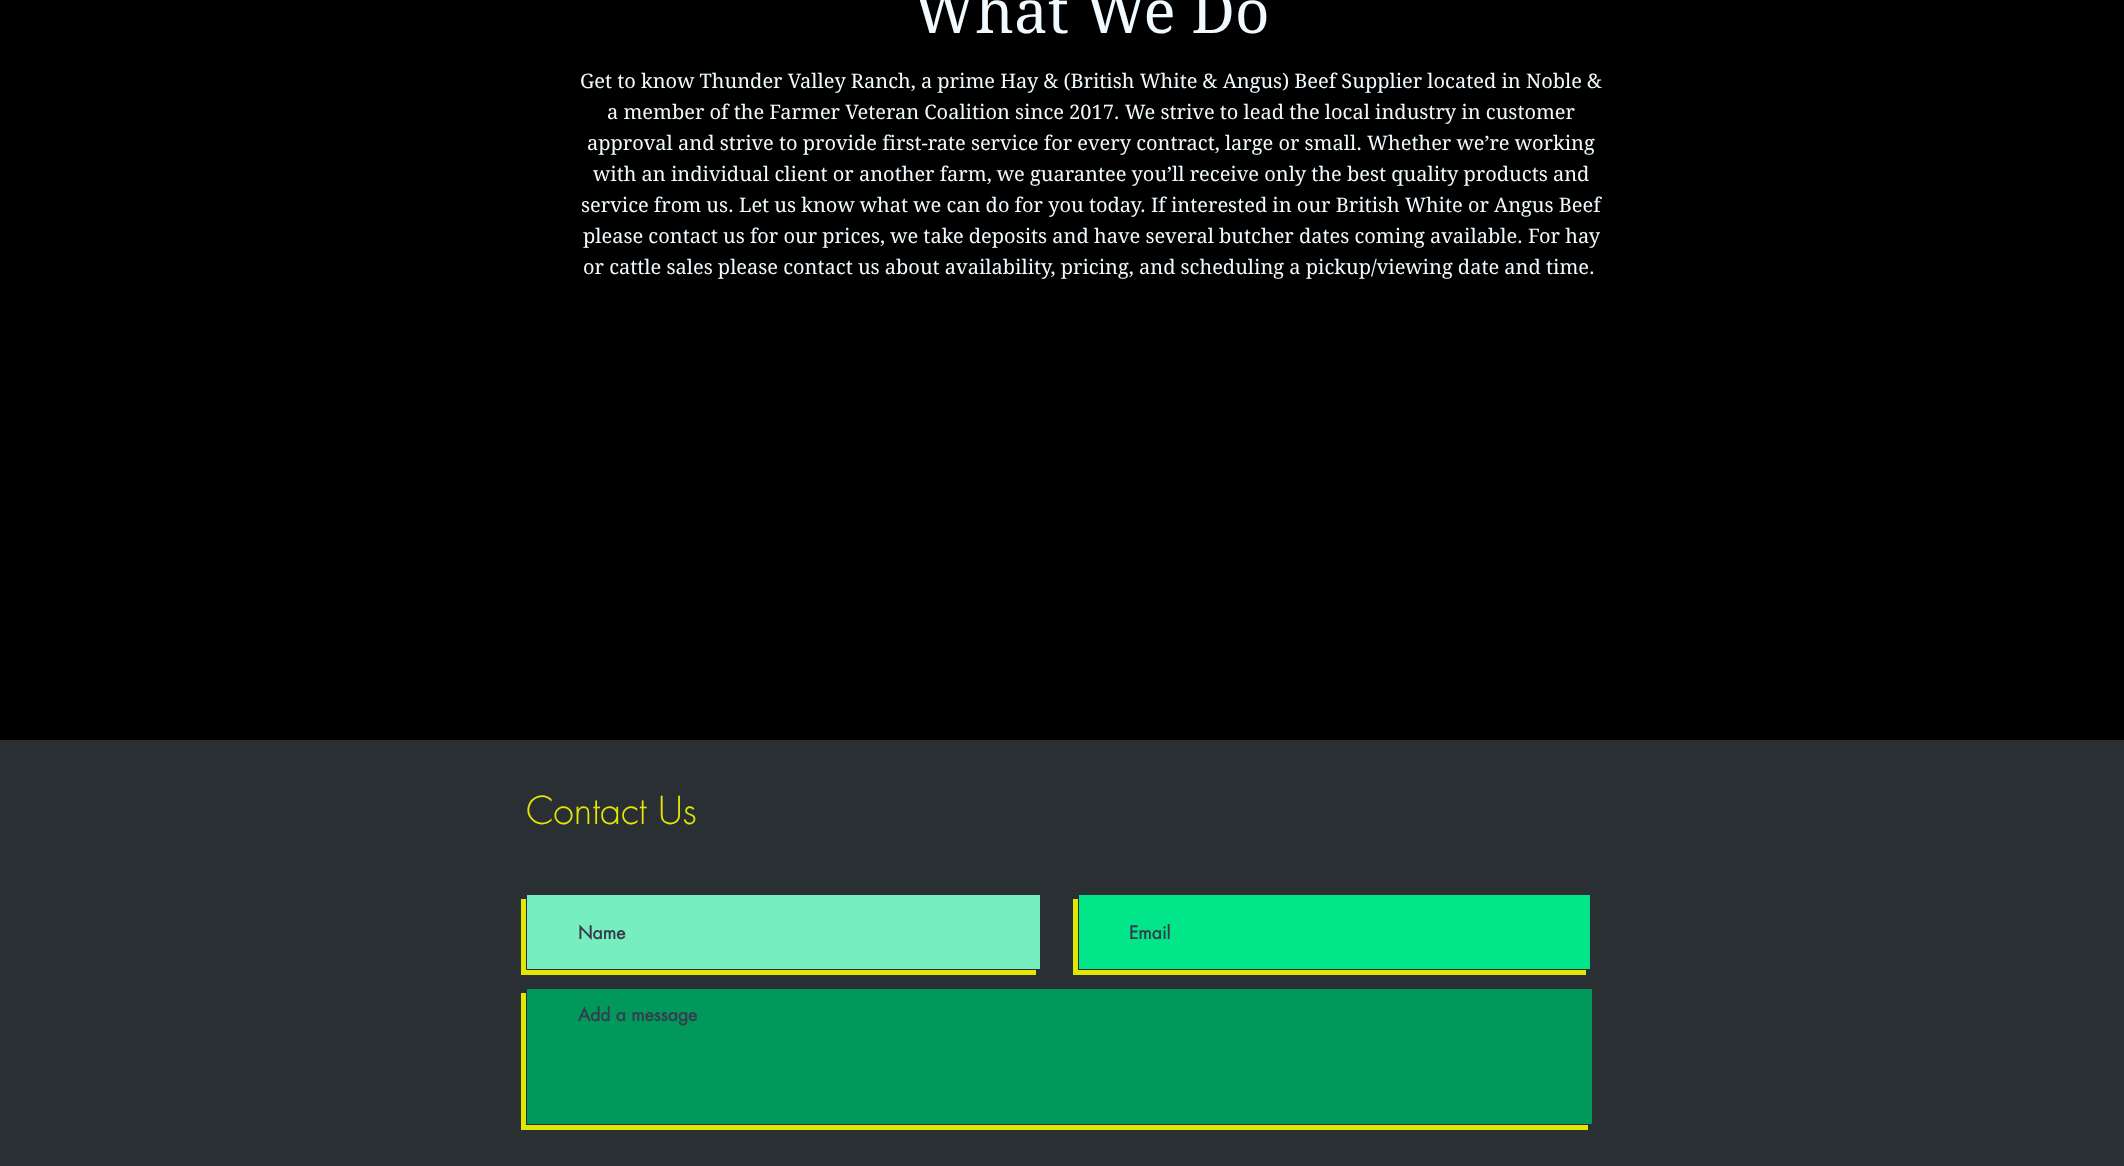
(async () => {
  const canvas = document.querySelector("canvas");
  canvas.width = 2124;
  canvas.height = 1166;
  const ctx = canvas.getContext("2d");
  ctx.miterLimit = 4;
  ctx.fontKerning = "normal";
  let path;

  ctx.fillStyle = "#292f33";
  ctx.fillRect(0, 0, 2124, 1166);
  ctx.fillStyle = "#000000";
  ctx.fillRect(0, 0, 2124, 740);
  ctx.fillStyle = "#e2e605";
  path = new Path2D("M521 899V975H1036V970H526V899Z");
  ctx.fill(path);
  ctx.fillStyle = "#77eebe";
  ctx.fillRect(527, 895, 513, 74);
  ctx.fillStyle = "#e2e605";
  path = new Path2D("M1073 899V975H1586V970H1078V899Z");
  ctx.fill(path);
  ctx.fillStyle = "#00e689";
  ctx.fillRect(1079, 895, 511, 74);
  ctx.fillStyle = "#e2e605";
  path = new Path2D("M521 993V1130H1588V1125H526V993Z");
  ctx.fill(path);
  ctx.fillStyle = "#00995b";
  ctx.fillRect(527, 989, 1065, 135);
  ctx.font = "60px 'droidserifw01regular'";
  ctx.fillStyle = "#f0faff";
  ctx.fillText("What We Do", 913, 33);
  ctx.font = "20px 'droidserifw01regular'";
  for (const [text, x, y] of [
    ["Get to know Thunder Valley Ranch, a prime Hay & (British White & Angus) Beef Supplier located in Noble &", 580, 88],
    ["a member of the Farmer Veteran Coalition since 2017. We strive to lead the local industry in customer", 607, 119],
    ["approval and strive to provide first-rate service for every contract, large or small. Whether we’re working", 587, 150],
    ["with an individual client or another farm, we guarantee you’ll receive only the best quality products and", 593, 181],
    ["service from us. Let us know what we can do for you today. If interested in our British White or Angus Beef", 581, 212],
    ["please contact us for our prices, we take deposits and have several butcher dates coming available. For hay", 583, 243],
    ["or cattle sales please contact us about availability, pricing, and scheduling a pickup/viewing date and time.", 583, 274],
  ]) {
    ctx.fillText(text, x, y);
  }
  ctx.font = "300 37.5px futura";
  ctx.fillStyle = "#e2e605";
  ctx.fillText("Contact Us", 526, 824);
  ctx.font = "bold 17.5px futura";
  ctx.fillStyle = "#373b4d";
  for (const [text, x, y] of [
    ["Name", 578, 939],
    ["Email", 1129, 939],
    ["Add a message", 578, 1021],
  ]) {
    ctx.fillText(text, x, y);
  }
})();
